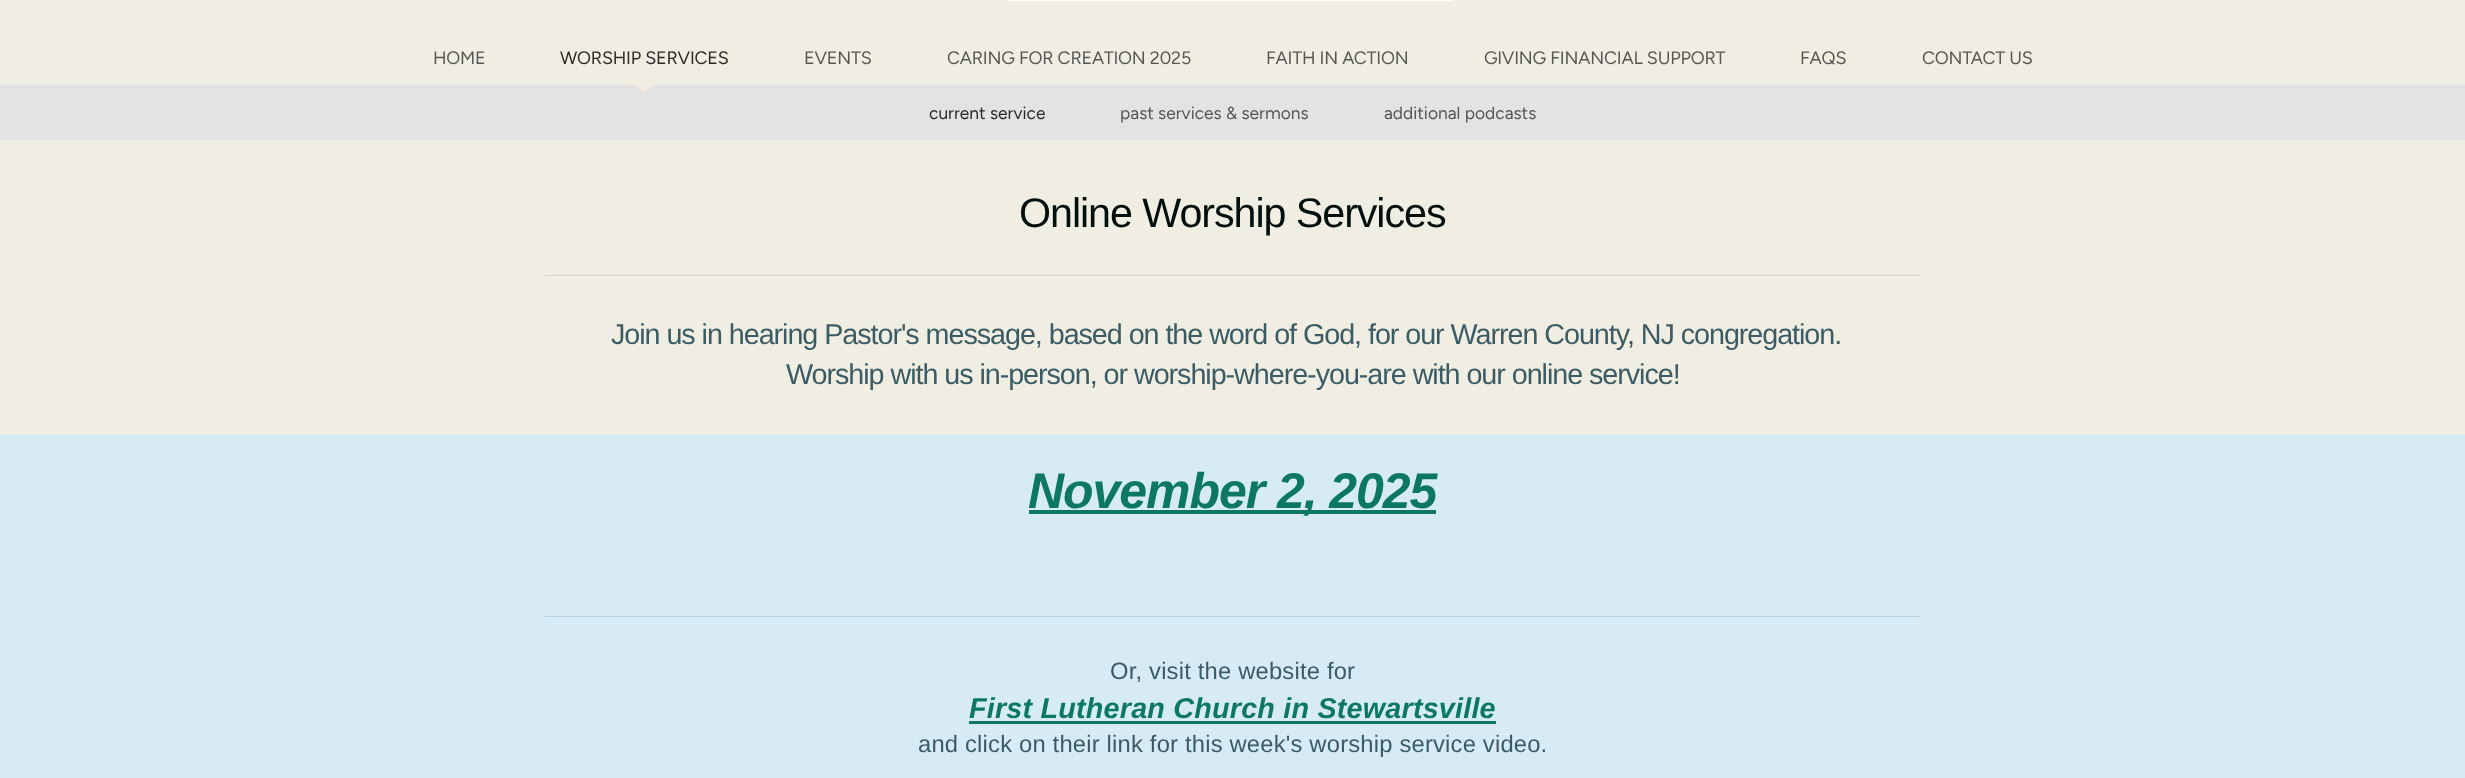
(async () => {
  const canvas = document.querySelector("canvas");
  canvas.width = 2465;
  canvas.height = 778;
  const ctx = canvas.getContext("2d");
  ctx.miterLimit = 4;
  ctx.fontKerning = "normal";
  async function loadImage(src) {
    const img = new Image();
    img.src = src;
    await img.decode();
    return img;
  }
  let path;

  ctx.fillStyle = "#f0eee2";
  ctx.fillRect(0, 0, 2465, 778);
  ctx.drawImage(await loadImage("img/1.png"), 1007, 0, 447, 2);
  ctx.fillStyle = "#e3e3e3";
  ctx.fillRect(0, 85, 2465, 55);
  ctx.fillStyle = "#f2ece4";
  path = new Path2D("M635 84H655L645 92.5Z");
  ctx.fill(path);
  for (const [x, y, w, h, color] of [
    [545, 275, 1375, 1, "#ced4d2"],
    [0, 435, 2465, 343, "#d6ebf4"],
    [545, 616, 1375, 1, "#b7d2e0"],
    [1029, 510, 407, 4, "#0c7862"],
    [969, 721, 527, 3, "#0c7862"],
  ]) {
    ctx.fillStyle = color;
    ctx.fillRect(x, y, w, h);
  }
  ctx.letterSpacing = "-0.2px";
  ctx.font = "300 18px Figtree";
  ctx.fillStyle = "#565656";
  ctx.fillText("HOME", 433, 64);
  ctx.fillStyle = "#2a2a2a";
  ctx.fillText("WORSHIP SERVICES", 560, 64);
  ctx.fillStyle = "#565656";
  for (const [text, x, y] of [
    ["EVENTS", 804, 64],
    ["CARING FOR CREATION 2025", 947, 64],
    ["FAITH IN ACTION", 1266, 64],
    ["GIVING FINANCIAL SUPPORT", 1484, 64],
    ["FAQS", 1800, 64],
    ["CONTACT US", 1922, 64],
  ]) {
    ctx.fillText(text, x, y);
  }
  ctx.letterSpacing = "0px";
  ctx.font = "300 17.4px Figtree";
  ctx.fillStyle = "#2a2a2a";
  ctx.fillText("current service", 929, 119);
  ctx.fillStyle = "#565656";
  ctx.fillText("past services & sermons", 1120, 119);
  ctx.fillText("additional podcasts", 1384, 119);
  ctx.letterSpacing = "-1.06px";
  ctx.font = "41.25px Liberation Sans";
  ctx.fillStyle = "#020f0c";
  ctx.fillText("Online Worship Services", 1019, 227);
  ctx.font = "28.75px Liberation Sans";
  ctx.fillStyle = "#3c5c65";
  ctx.fillText("Join us in hearing Pastor's message, based on the word of God, for our Warren County, NJ congregation.", 611, 344);
  ctx.fillText("Worship with us in-person, or worship-where-you-are with our online service!", 786, 384);
  ctx.font = "italic bold 50px Liberation Sans";
  ctx.fillStyle = "#0c7862";
  ctx.fillText("November 2, 2025", 1028, 508);
  ctx.letterSpacing = "0.2px";
  ctx.font = "23.75px Liberation Sans";
  ctx.fillStyle = "#3c5c65";
  ctx.fillText("Or, visit the website for", 1110, 679);
  ctx.font = "italic bold 28.75px Liberation Sans";
  ctx.fillStyle = "#0c7862";
  ctx.fillText("First Lutheran Church in Stewartsville", 969, 718);
  ctx.font = "23.75px Liberation Sans";
  ctx.fillStyle = "#3c5c65";
  ctx.fillText("and click on their link for this week's worship service video.", 918, 752);
})();
